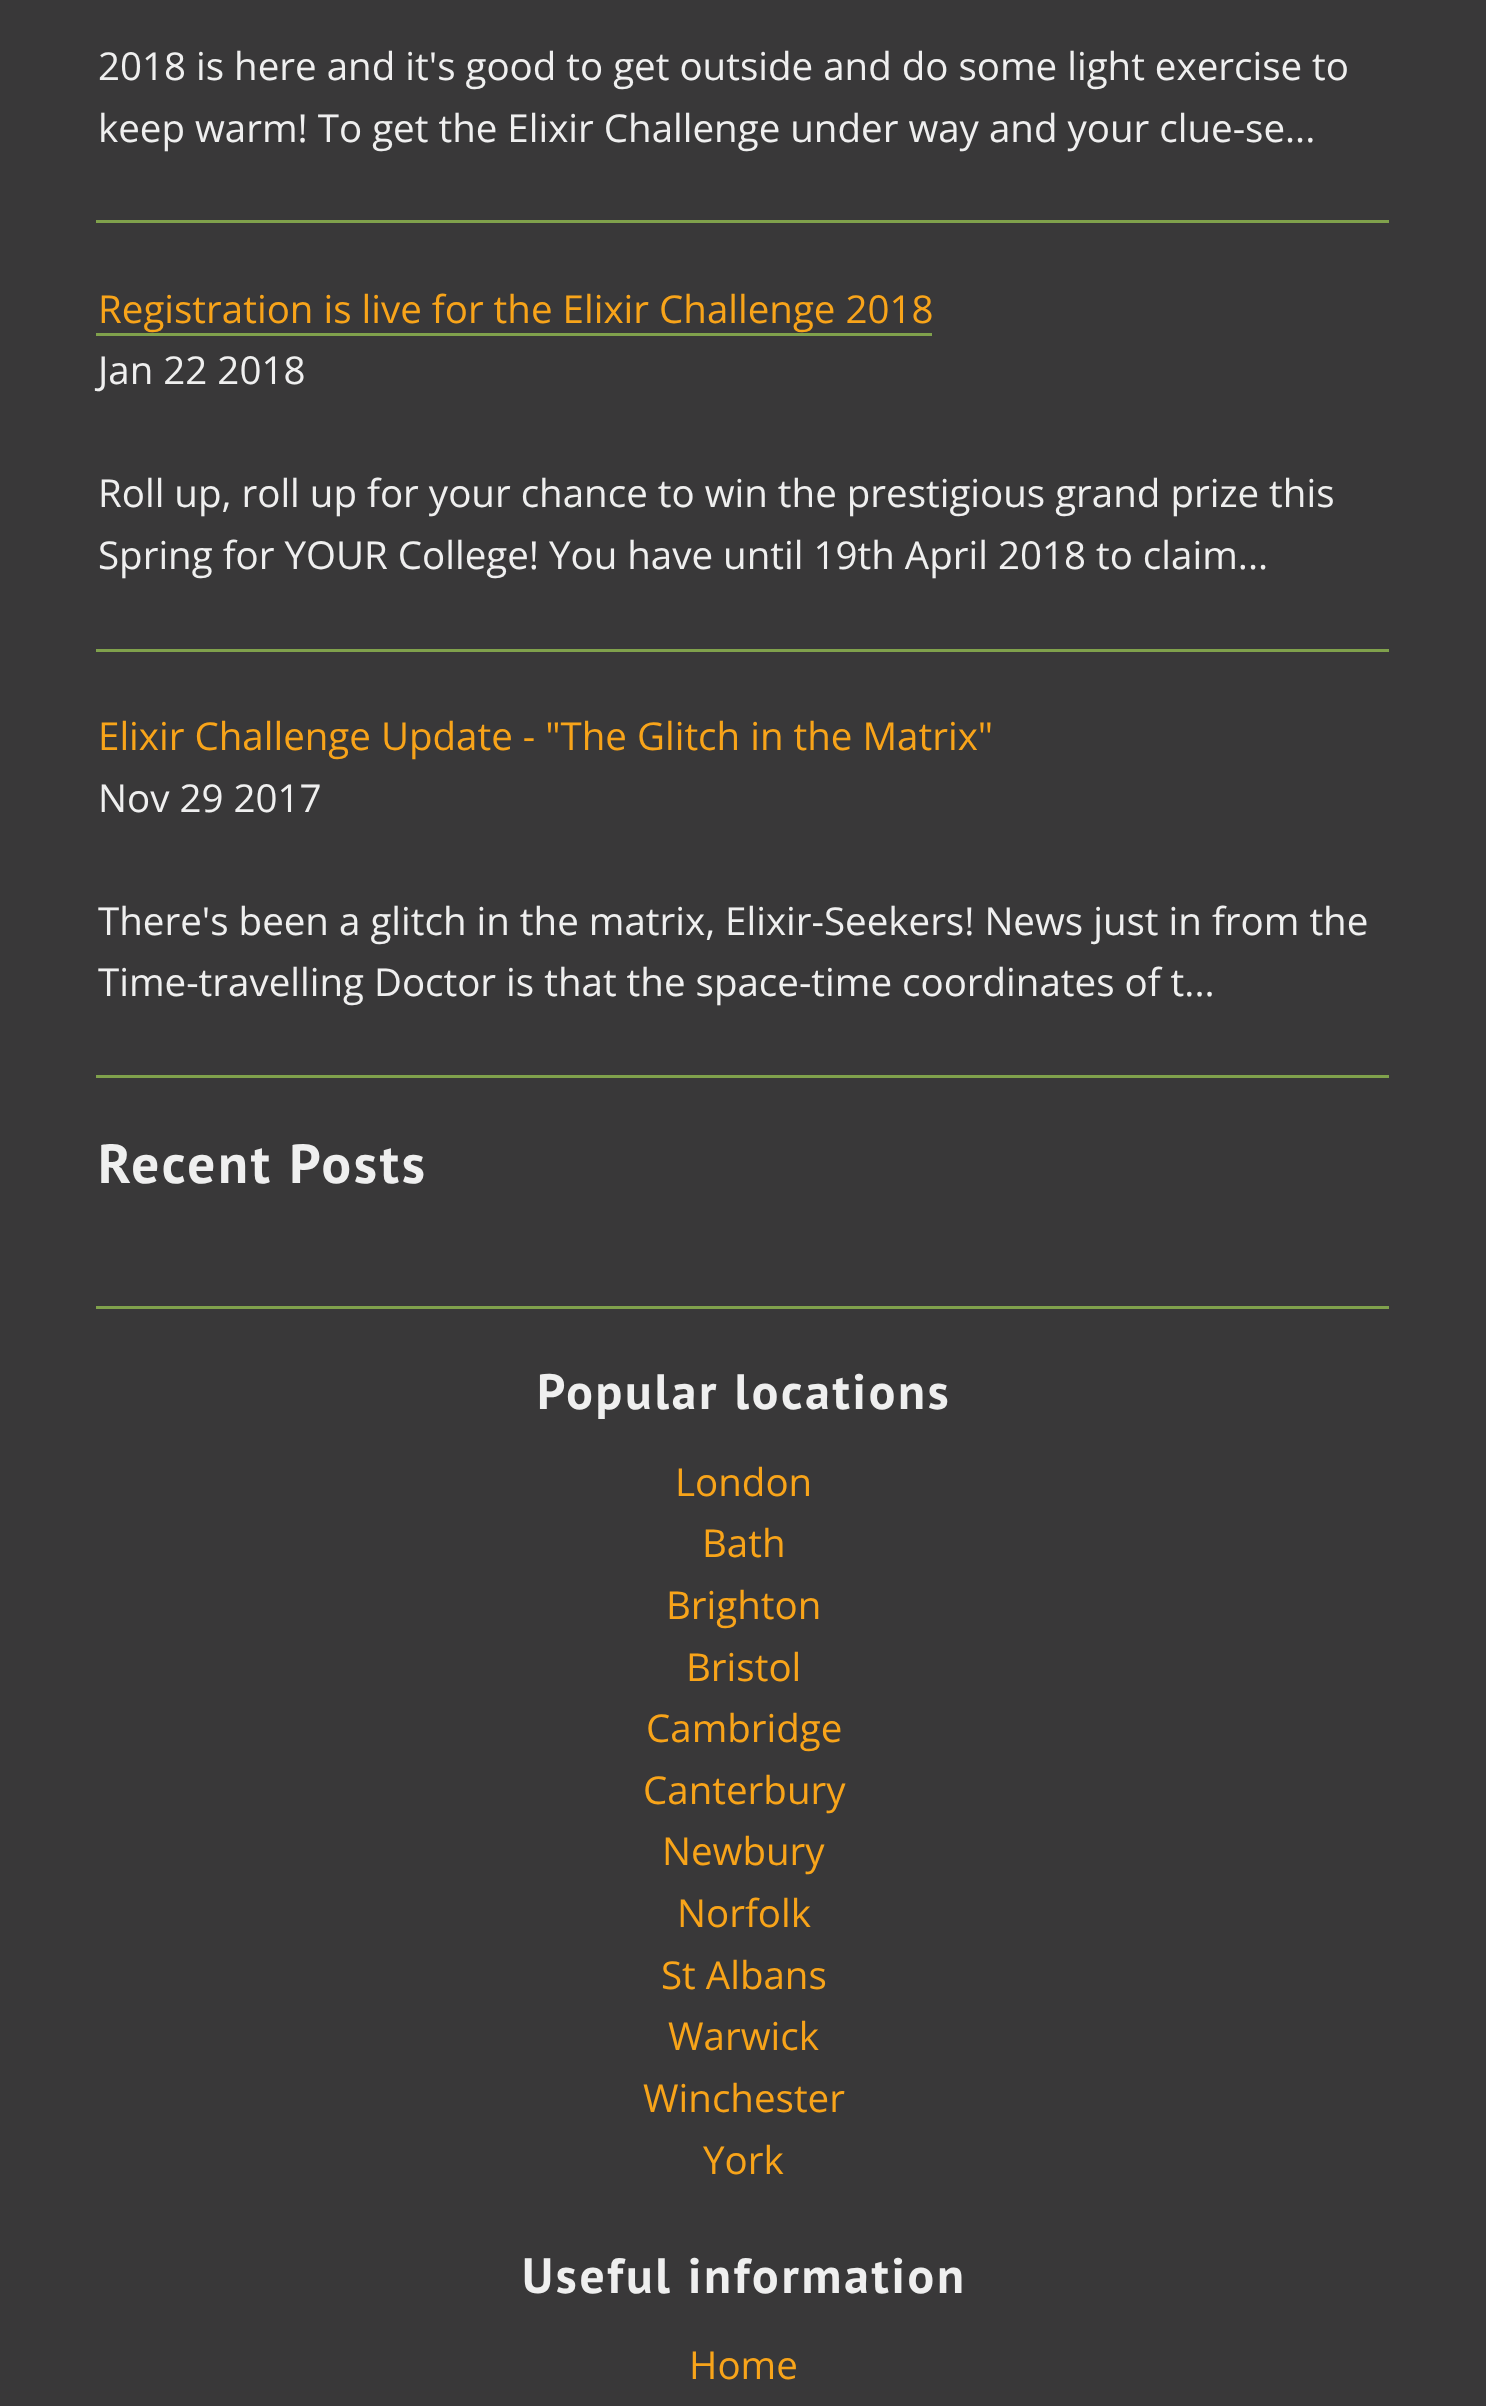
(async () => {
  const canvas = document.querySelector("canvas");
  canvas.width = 1486;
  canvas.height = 2406;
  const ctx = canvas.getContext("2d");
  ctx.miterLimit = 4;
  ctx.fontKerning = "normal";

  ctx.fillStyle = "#393839";
  ctx.fillRect(0, 0, 1486, 2406);
  for (const [x, y, w, h, color] of [
    [96, 220, 1293, 3, "#80a14c"],
    [96, 649, 1293, 3, "#80a14c"],
    [96, 333, 836, 3, "#80a14c"],
    [96, 1075, 1293, 3, "#80a14c"],
    [96, 1306, 1293, 3, "#80a14c"],
  ]) {
    ctx.fillStyle = color;
    ctx.fillRect(x, y, w, h);
  }
  ctx.font = "38.5px Open Sans";
  ctx.fillStyle = "#efefef";
  ctx.fillText("2018 is here and it's good to get outside and do some light exercise to", 98, 80);
  ctx.fillText("keep warm! To get the Elixir Challenge under way and your clue-se...", 98, 142);
  ctx.fillStyle = "#f8a41a";
  ctx.fillText("Registration is live for the Elixir Challenge 2018", 98, 323);
  ctx.fillStyle = "#efefef";
  for (const [text, x, y] of [
    ["Jan 22 2018", 98, 384],
    ["Roll up, roll up for your chance to win the prestigious grand prize this", 98, 507],
    ["Spring for YOUR College! You have until 19th April 2018 to claim...", 98, 569],
  ]) {
    ctx.fillText(text, x, y);
  }
  ctx.fillStyle = "#f8a41a";
  ctx.fillText("Elixir Challenge Update - \"The Glitch in the Matrix\"", 98, 750);
  ctx.fillStyle = "#efefef";
  for (const [text, x, y] of [
    ["Nov 29 2017", 98, 812],
    ["There's been a glitch in the matrix, Elixir-Seekers! News just in from the", 98, 935],
    ["Time-travelling Doctor is that the space-time coordinates of t...", 98, 996],
  ]) {
    ctx.fillText(text, x, y);
  }
  ctx.letterSpacing = "2.75px";
  ctx.font = "bold 55px PT Sans";
  ctx.fillText("Recent Posts", 98, 1183);
  ctx.font = "bold 49.5px PT Sans";
  ctx.fillText("Popular locations", 537, 1409);
  ctx.letterSpacing = "0px";
  ctx.font = "38.5px Open Sans";
  ctx.fillStyle = "#f8a41a";
  for (const [text, x, y] of [
    ["London", 675, 1496],
    ["Bath", 702, 1557],
    ["Brighton", 666, 1619],
    ["Bristol", 686, 1681],
    ["Cambridge", 646, 1742],
    ["Canterbury", 643, 1804],
    ["Newbury", 662, 1865],
    ["Norfolk", 677, 1927],
    ["St Albans", 661, 1989],
    ["Warwick", 668, 2050],
    ["Winchester", 643, 2112],
    ["York", 703, 2174],
  ]) {
    ctx.fillText(text, x, y);
  }
  ctx.letterSpacing = "2.75px";
  ctx.font = "bold 49.5px PT Sans";
  ctx.fillStyle = "#efefef";
  ctx.fillText("Useful information", 522, 2293);
  ctx.letterSpacing = "0px";
  ctx.font = "38.5px Open Sans";
  ctx.fillStyle = "#f8a41a";
  ctx.fillText("Home", 689, 2379);
})();
